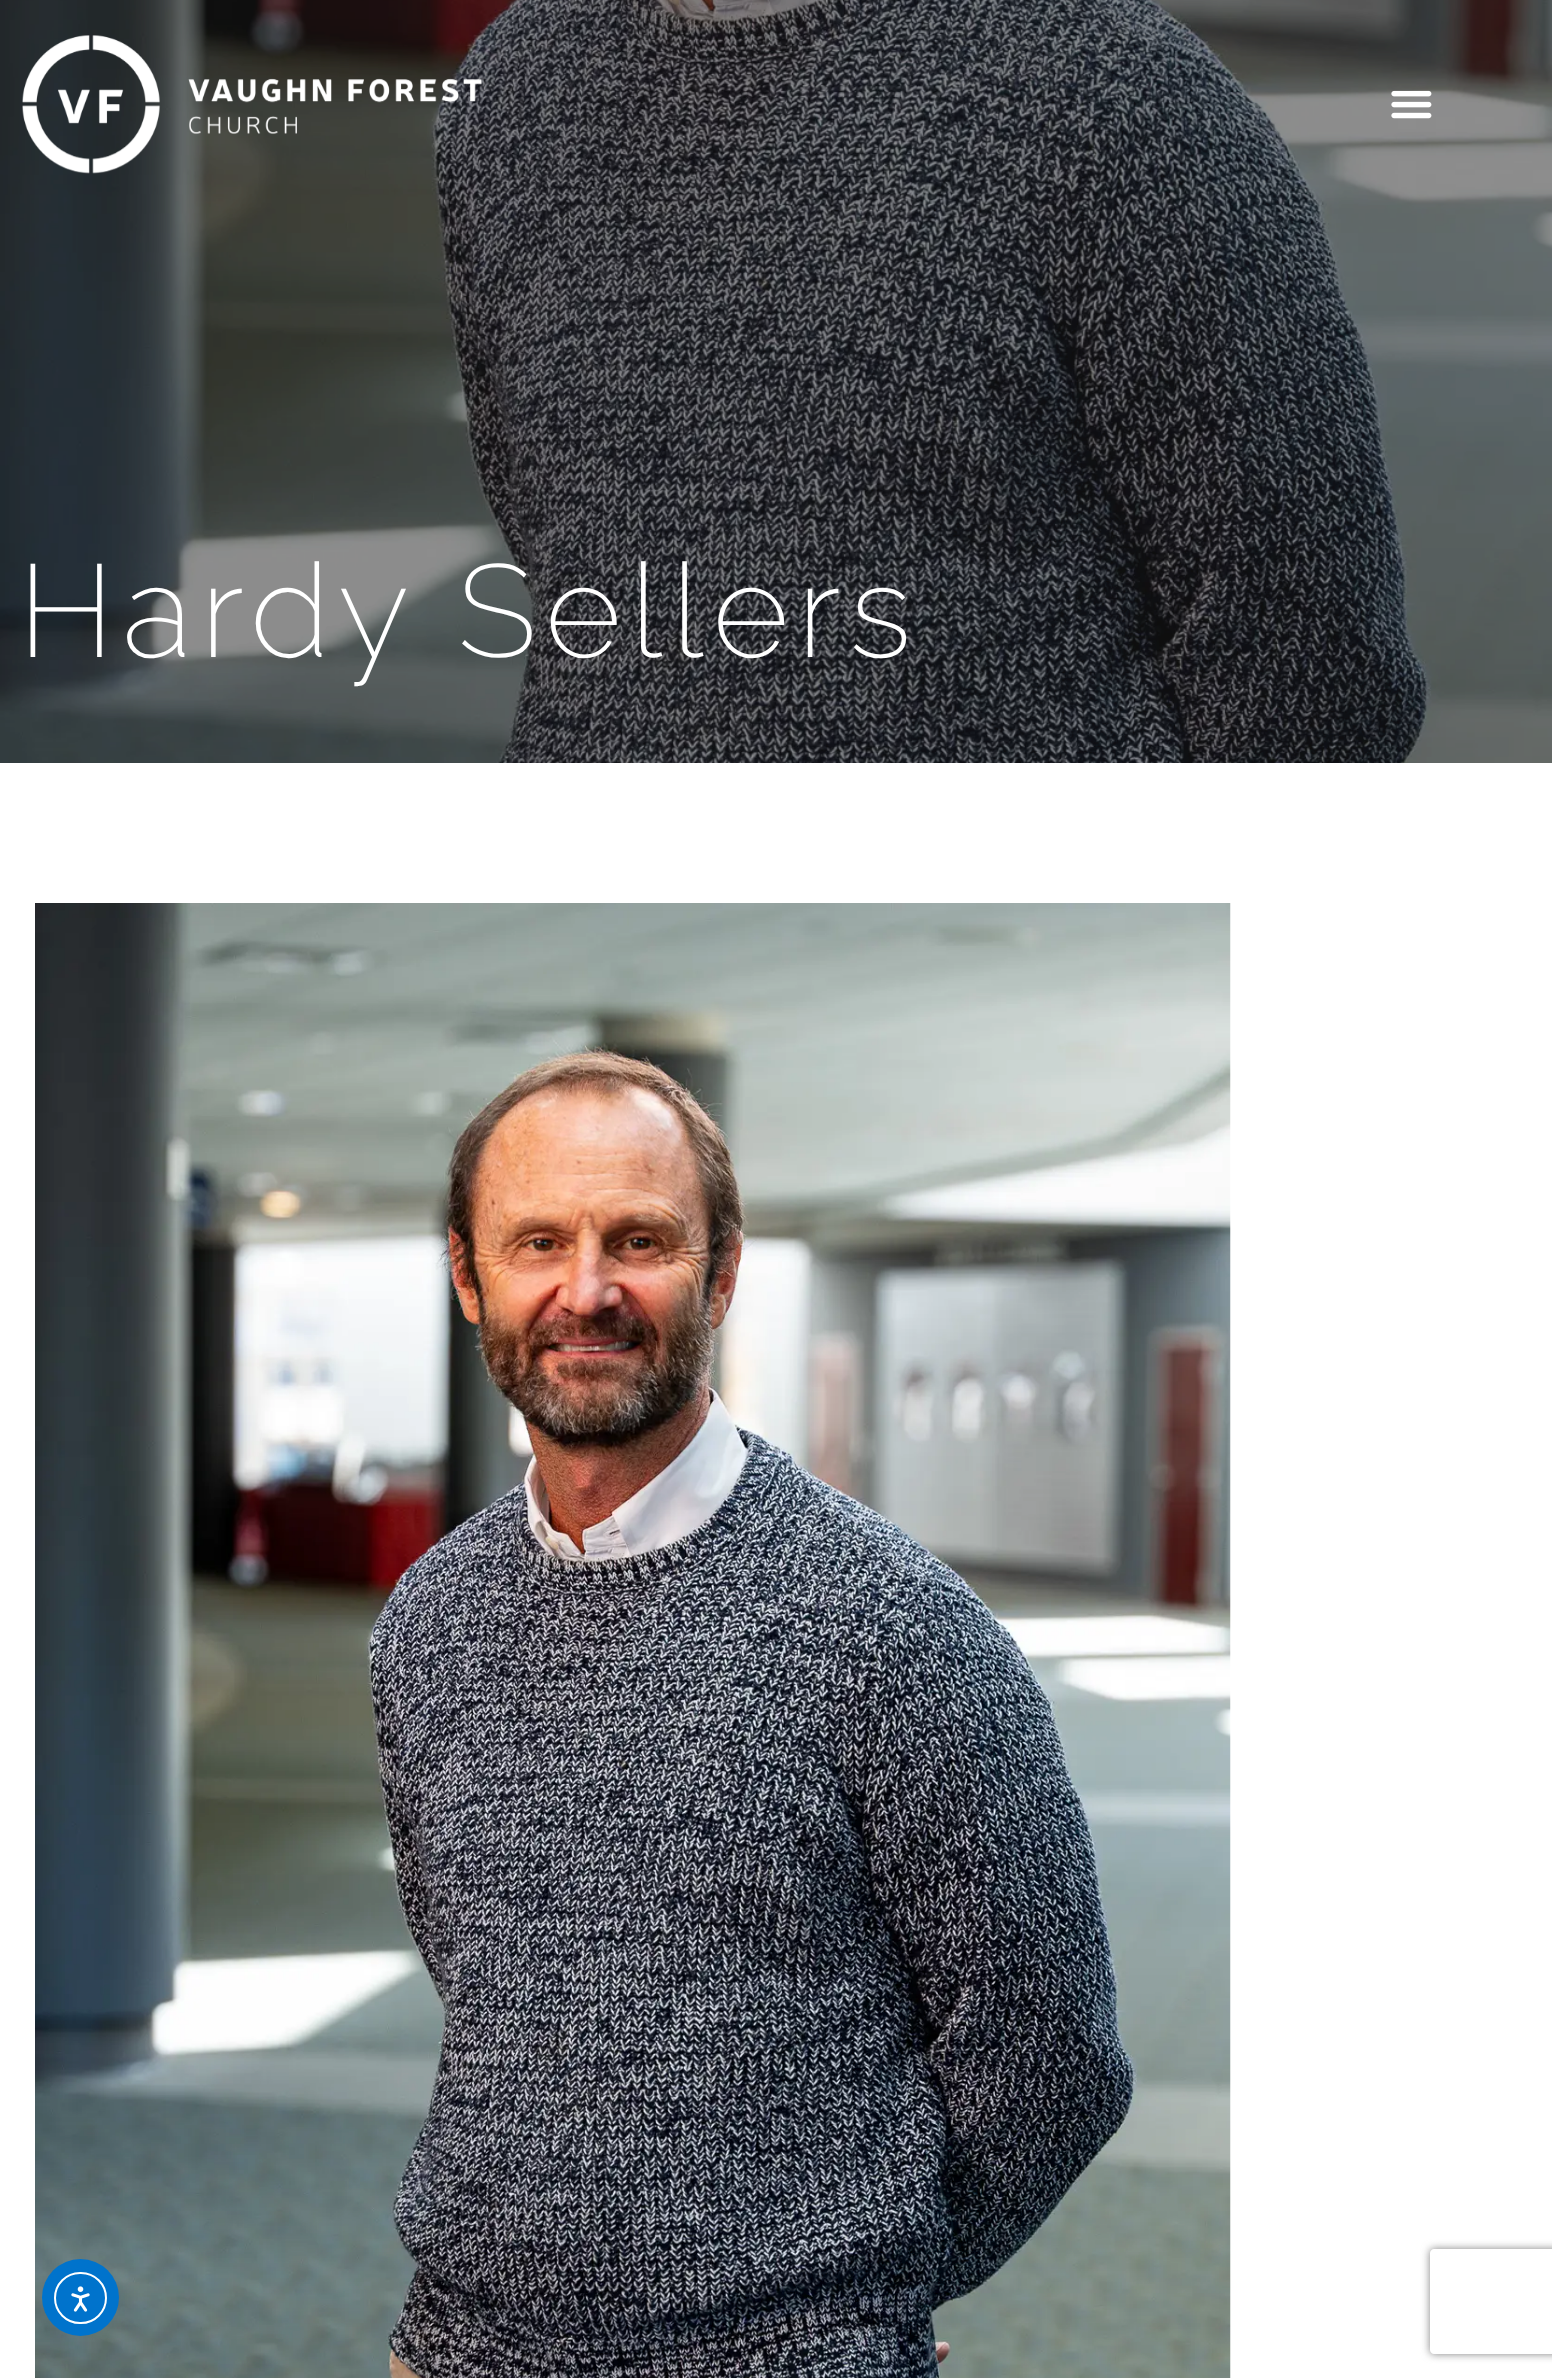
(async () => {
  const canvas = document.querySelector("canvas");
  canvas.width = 1552;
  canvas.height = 2378;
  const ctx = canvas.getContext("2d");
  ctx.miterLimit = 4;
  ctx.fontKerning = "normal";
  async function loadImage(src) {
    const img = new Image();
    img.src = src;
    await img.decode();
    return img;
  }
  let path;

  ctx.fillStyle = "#ffffff";
  ctx.fillRect(0, 0, 1552, 2378);
  ctx.drawImage(await loadImage("img/3.png"), 0, 0, 1552, 763);
  ctx.drawImage(await loadImage("img/1.png"), 22, 35, 460, 139);
  ctx.drawImage(await loadImage("img/2.png"), 1391, 90, 41, 29);
  ctx.drawImage(await loadImage("img/4.png"), 35, 903, 1196, 1475);
  ctx.fillStyle = "#0073cc";
  ctx.beginPath();
  ctx.arc(80.5, 2297.5, 38.5, 0, Math.PI * 2);
  ctx.fill();
  ctx.beginPath();
  ctx.roundRect(55, 2273, 51, 50, 25);
  ctx.strokeStyle = "#ffffff";
  ctx.lineWidth = 2;
  ctx.stroke();
  ctx.drawImage(await loadImage("img/5.png"), 71, 2286, 19, 26);
  ctx.save();
  path = new Path2D("M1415 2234H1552V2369H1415ZM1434 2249H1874C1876 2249 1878 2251 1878 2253V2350C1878 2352 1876 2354 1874 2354H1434C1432 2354 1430 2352 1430 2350V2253C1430 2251 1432 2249 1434 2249Z");
  ctx.clip(path, "evenodd");
  ctx.fillStyle = "#808080";
  ctx.filter = "blur(4.5px)";
  ctx.beginPath();
  ctx.roundRect(1430, 2249, 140, 105, 4);
  ctx.fill();
  ctx.filter = "none";
  ctx.restore();
  ctx.letterSpacing = "8.75px";
  ctx.font = "200 131.25px Raleway";
  ctx.fillStyle = "#ffffff";
  ctx.fillText("Hardy Sellers", 18, 657);
})();
